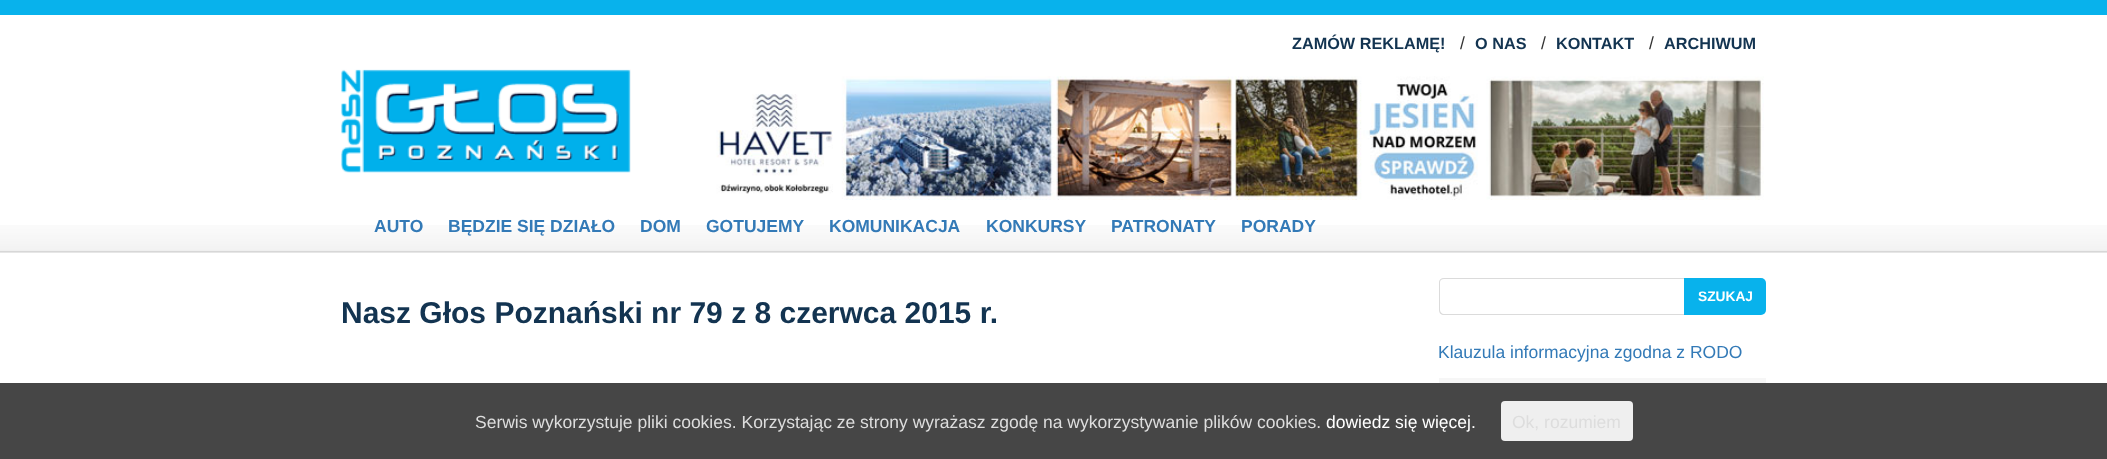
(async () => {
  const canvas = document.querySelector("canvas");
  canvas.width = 2107;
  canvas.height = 459;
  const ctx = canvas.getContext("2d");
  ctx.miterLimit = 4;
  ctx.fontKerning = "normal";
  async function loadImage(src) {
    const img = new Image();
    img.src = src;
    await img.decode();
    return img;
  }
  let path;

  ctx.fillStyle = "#ffffff";
  ctx.fillRect(0, 0, 2107, 459);
  ctx.fillStyle = "#08b2ec";
  ctx.fillRect(0, 0, 2107, 15);
  ctx.drawImage(await loadImage("img/1.png"), 716, 76, 1048, 124);
  ctx.drawImage(await loadImage("img/2.png"), 341, 69, 290, 104);
  ctx.drawImage(await loadImage("img/3.png"), 0, 225, 2107, 28);
  ctx.fillStyle = "#dbdbdb";
  path = new Path2D("M1444 278H1684V315H1444C1441 315 1439 313 1439 310V282C1439 280 1441 278 1444 278ZM1444 279H1684V314H1444C1442 314 1440 312 1440 310V282C1440 280 1442 279 1444 279Z");
  ctx.fill(path, "evenodd");
  ctx.fillStyle = "#08b2ec";
  ctx.beginPath();
  ctx.roundRect(1684, 278, 82, 37, [0, 5, 5, 0]);
  ctx.fill();
  ctx.fillStyle = "#f6f6f6";
  ctx.fillRect(1439, 378, 327, 5);
  ctx.fillStyle = "#464646";
  ctx.fillRect(0, 383, 2107, 76);
  ctx.fillStyle = "#efefef";
  ctx.beginPath();
  ctx.roundRect(1501, 401, 132, 40, 4);
  ctx.fill();
  ctx.font = "bold 16.25px Liberation Sans";
  ctx.fillStyle = "#133451";
  ctx.fillText("ZAMÓW REKLAMĘ!", 1292, 49);
  ctx.font = "17.5px Liberation Sans";
  ctx.fillStyle = "#333333";
  ctx.fillText("/", 1460, 49);
  ctx.font = "bold 16.25px Liberation Sans";
  ctx.fillStyle = "#133451";
  ctx.fillText("O NAS", 1475, 49);
  ctx.font = "17.5px Liberation Sans";
  ctx.fillStyle = "#333333";
  ctx.fillText("/", 1541, 49);
  ctx.font = "bold 16.25px Liberation Sans";
  ctx.fillStyle = "#133451";
  ctx.fillText("KONTAKT", 1556, 49);
  ctx.font = "17.5px Liberation Sans";
  ctx.fillStyle = "#333333";
  ctx.fillText("/", 1649, 49);
  ctx.font = "bold 16.25px Liberation Sans";
  ctx.fillStyle = "#133451";
  ctx.fillText("ARCHIWUM", 1664, 49);
  ctx.font = "bold 17.5px Liberation Sans";
  ctx.fillStyle = "#337ab7";
  for (const [text, x, y] of [
    ["AUTO", 374, 232],
    ["BĘDZIE SIĘ DZIAŁO", 448, 232],
    ["DOM", 640, 232],
    ["GOTUJEMY", 706, 232],
    ["KOMUNIKACJA", 829, 232],
    ["KONKURSY", 986, 232],
    ["PATRONATY", 1111, 232],
    ["PORADY", 1241, 232],
  ]) {
    ctx.fillText(text, x, y);
  }
  ctx.font = "bold 30px Liberation Sans";
  ctx.fillStyle = "#133451";
  ctx.fillText("Nasz Głos Poznański nr 79 z 8 czerwca 2015 r.", 341, 323);
  ctx.font = "bold 13.75px Liberation Sans";
  ctx.fillStyle = "#ffffff";
  ctx.fillText("SZUKAJ", 1698, 301);
  ctx.font = "17.5px Liberation Sans";
  ctx.fillStyle = "#337ab7";
  ctx.fillText("Klauzula informacyjna zgodna z RODO", 1438, 358);
  ctx.fillStyle = "#dddddd";
  ctx.fillText("Serwis wykorzystuje pliki cookies. Korzystając ze strony wyrażasz zgodę na wykorzystywanie plików cookies.", 475, 428);
  ctx.fillStyle = "#ffffff";
  ctx.fillText("dowiedz się więcej.", 1326, 428);
  ctx.fillStyle = "#dddddd";
  ctx.fillText("Ok, rozumiem", 1512, 428);
})();
